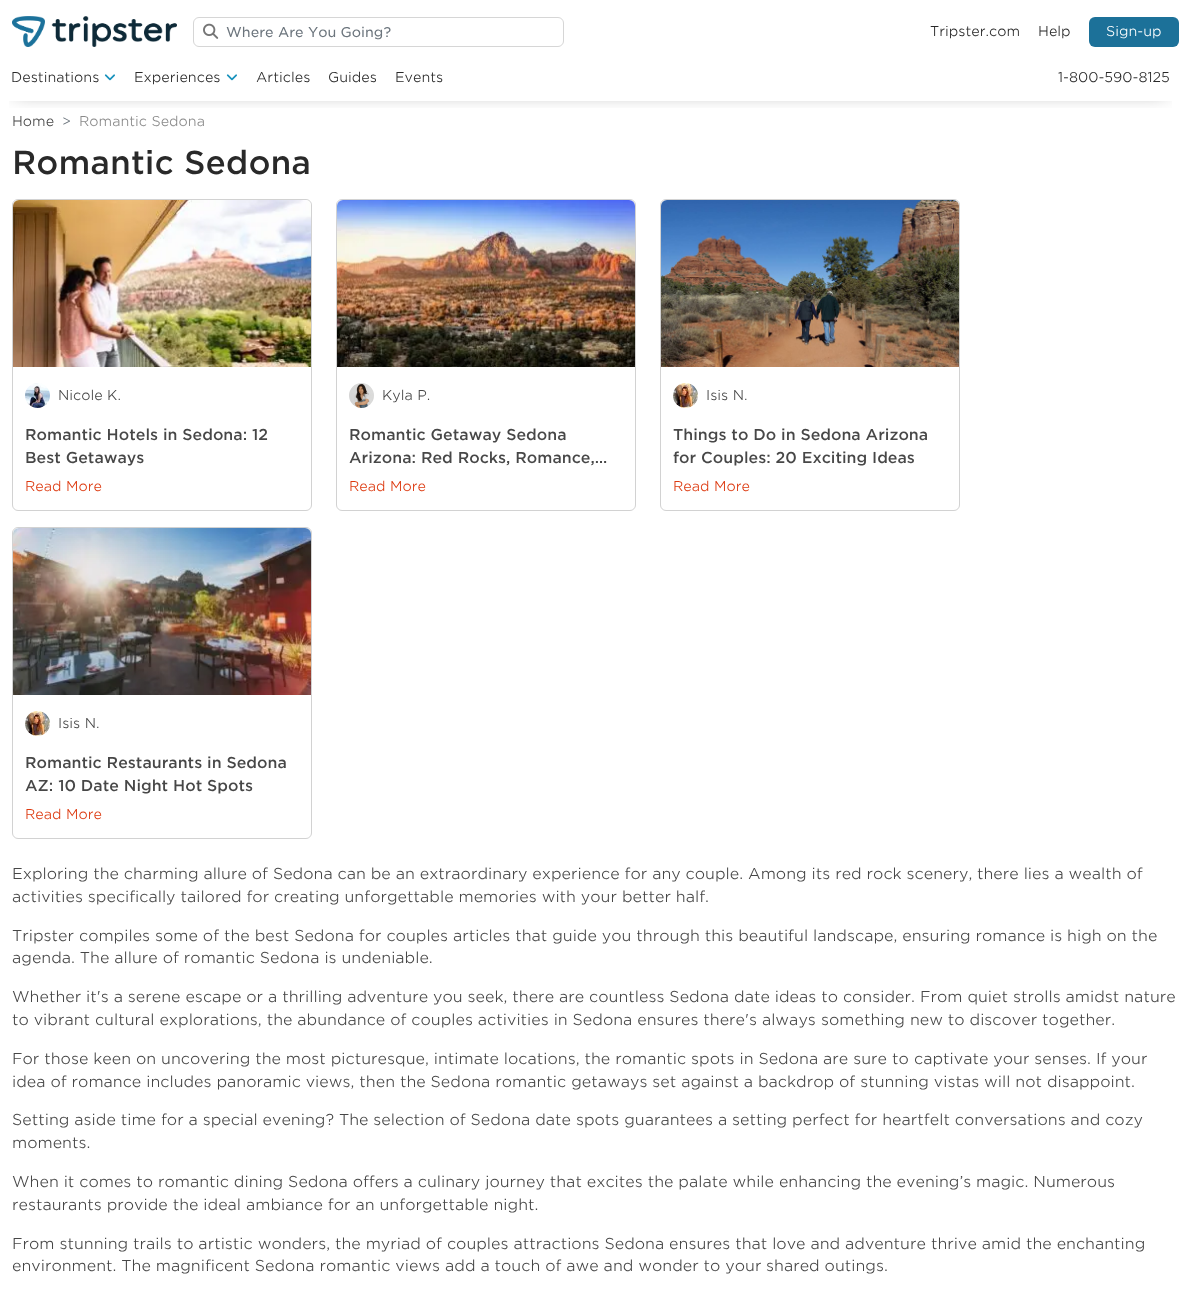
(async () => {
  const canvas = document.querySelector("canvas");
  canvas.width = 1191;
  canvas.height = 1290;
  const ctx = canvas.getContext("2d");
  ctx.miterLimit = 4;
  ctx.fontKerning = "none";
  async function loadImage(src) {
    const img = new Image();
    img.src = src;
    await img.decode();
    return img;
  }

  ctx.fillStyle = "#ffffff";
  ctx.fillRect(0, 0, 1191, 1290);
  ctx.save();
  ctx.beginPath();
  ctx.rect(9, 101, 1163, 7);
  ctx.clip();
  ctx.fillStyle = "rgba(0, 0, 0, 0.5)";
  ctx.filter = "blur(10px)";
  ctx.beginPath();
  ctx.rect(15, 30, 1151, 61);
  ctx.fill();
  ctx.filter = "none";
  ctx.restore();
  ctx.drawImage(await loadImage("img/1.png"), 12, 16, 165, 31);
  ctx.beginPath();
  ctx.roundRect(193.5, 17.5, 370, 29, 5.5);
  ctx.strokeStyle = "#d6d6d6";
  ctx.stroke();
  ctx.drawImage(await loadImage("img/2.png"), 203, 23, 16, 16);
  ctx.fillStyle = "#1c7199";
  ctx.beginPath();
  ctx.roundRect(1089, 17, 90, 30, 6);
  ctx.fill();
  ctx.drawImage(await loadImage("img/3.png"), 104, 74, 11, 7);
  ctx.drawImage(await loadImage("img/3.png"), 226, 74, 11, 7);
  ctx.beginPath();
  ctx.roundRect(12.5, 199.5, 299, 311, 5.5);
  ctx.strokeStyle = "#d2d2d2";
  ctx.stroke();
  ctx.drawImage(await loadImage("img/4.png"), 13, 200, 298, 167);
  ctx.drawImage(await loadImage("img/5.png"), 25, 383, 25, 25);
  ctx.beginPath();
  ctx.roundRect(336.5, 199.5, 299, 311, 5.5);
  ctx.stroke();
  ctx.drawImage(await loadImage("img/6.png"), 337, 200, 298, 167);
  ctx.drawImage(await loadImage("img/7.png"), 349, 383, 25, 25);
  ctx.beginPath();
  ctx.roundRect(660.5, 199.5, 299, 311, 5.5);
  ctx.stroke();
  ctx.drawImage(await loadImage("img/8.png"), 661, 200, 298, 167);
  ctx.drawImage(await loadImage("img/9.png"), 673, 383, 25, 25);
  ctx.beginPath();
  ctx.roundRect(12.5, 527.5, 299, 311, 5.5);
  ctx.stroke();
  ctx.drawImage(await loadImage("img/10.png"), 13, 528, 298, 167);
  ctx.drawImage(await loadImage("img/9.png"), 25, 711, 25, 25);
  ctx.font = "13.6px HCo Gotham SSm";
  ctx.fillStyle = "#6c757d";
  ctx.fillText("Where Are You Going?", 226, 37);
  ctx.font = "300 13.6px HCo Gotham SSm";
  ctx.fillStyle = "#292929";
  ctx.fillText("Tripster.com", 930, 36);
  ctx.fillText("Help", 1038, 36);
  ctx.fillStyle = "#ffffff";
  ctx.fillText("Sign-up", 1106, 36);
  ctx.fillStyle = "#292929";
  for (const [text, x, y] of [
    ["Destinations", 11, 82],
    ["Experiences", 134, 82],
    ["Articles", 256, 82],
    ["Guides", 328, 82],
    ["Events", 395, 82],
    ["1-800-590-8125", 1058, 82],
  ]) {
    ctx.fillText(text, x, y);
  }
  ctx.fillStyle = "#474747";
  ctx.fillText("Home", 12, 126);
  ctx.fillStyle = "#6c757d";
  ctx.fillText(">", 62, 126);
  ctx.fillStyle = "#8a8a8a";
  ctx.fillText("Romantic Sedona", 79, 126);
  ctx.font = "500 32px HCo Gotham SSm";
  ctx.fillStyle = "#292929";
  ctx.fillText("Romantic Sedona", 12, 174);
  ctx.font = "300 13.6px HCo Gotham SSm";
  ctx.fillStyle = "#474747";
  ctx.fillText("Nicole K.", 58, 400);
  ctx.font = "500 15.2px HCo Gotham SSm";
  ctx.fillText("Romantic Hotels in Sedona: 12", 25, 440);
  ctx.fillText("Best Getaways", 25, 463);
  ctx.font = "300 13.6px HCo Gotham SSm";
  ctx.fillStyle = "#dd390f";
  ctx.fillText("Read More", 25, 491);
  ctx.fillStyle = "#474747";
  ctx.fillText("Kyla P.", 382, 400);
  ctx.font = "500 15.2px HCo Gotham SSm";
  ctx.fillText("Romantic Getaway Sedona", 349, 440);
  ctx.fillText("Arizona: Red Rocks, Romance,…", 349, 463);
  ctx.font = "300 13.6px HCo Gotham SSm";
  ctx.fillStyle = "#dd390f";
  ctx.fillText("Read More", 349, 491);
  ctx.fillStyle = "#474747";
  ctx.fillText("Isis N.", 706, 400);
  ctx.font = "500 15.2px HCo Gotham SSm";
  ctx.fillText("Things to Do in Sedona Arizona", 673, 440);
  ctx.fillText("for Couples: 20 Exciting Ideas", 673, 463);
  ctx.font = "300 13.6px HCo Gotham SSm";
  ctx.fillStyle = "#dd390f";
  ctx.fillText("Read More", 673, 491);
  ctx.fillStyle = "#474747";
  ctx.fillText("Isis N.", 58, 728);
  ctx.font = "500 15.2px HCo Gotham SSm";
  ctx.fillText("Romantic Restaurants in Sedona", 25, 768);
  ctx.fillText("AZ: 10 Date Night Hot Spots", 25, 791);
  ctx.font = "300 13.6px HCo Gotham SSm";
  ctx.fillStyle = "#dd390f";
  ctx.fillText("Read More", 25, 819);
  ctx.font = "300 15.2px HCo Gotham SSm";
  ctx.fillStyle = "#474747";
  for (const [text, x, y] of [
    ["Exploring the charming allure of Sedona can be an extraordinary experience for any couple. Among its red rock scenery,", 12, 879],
    ["there lies a wealth of", 977, 879],
    ["activities specifically tailored for creating unforgettable memories with your better half.", 12, 902],
    ["Tripster compiles some of the best Sedona for couples articles that guide you through this beautiful landscape, ensuring romance", 12, 941],
    ["is high on the", 1050, 941],
    ["agenda. The allure of romantic Sedona is undeniable.", 12, 963],
    ["Whether it's a serene escape or a thrilling adventure you seek, there are countless Sedona date ideas to consider.", 12, 1002],
    ["From quiet strolls amidst nature", 920, 1002],
    ["to vibrant cultural explorations, the abundance of couples activities in Sedona ensures there's always", 12, 1025],
    ["something new to discover together.", 821, 1025],
    ["For those keen on uncovering the most picturesque, intimate locations, the romantic spots in Sedona are sure to", 12, 1064],
    ["captivate your senses. If your", 914, 1064],
    ["idea of romance includes panoramic views, then the Sedona romantic getaways set against a backdrop", 12, 1087],
    ["of stunning vistas will not disappoint.", 839, 1087],
    ["Setting aside time for a special evening? The selection of Sedona date spots guarantees a setting perfect for heartfelt conversations and cozy", 12, 1125],
    ["moments.", 12, 1148],
    ["When it comes to romantic dining Sedona offers a culinary journey that excites the palate while enhancing the evening’s", 12, 1187],
    ["magic. Numerous", 976, 1187],
    ["restaurants provide the ideal ambiance for an unforgettable night.", 12, 1210],
    ["From stunning trails to artistic wonders, the myriad of couples attractions Sedona ensures that love and adventure", 12, 1249],
    ["thrive amid the enchanting", 931, 1249],
    ["environment. The magnificent Sedona romantic views add a touch of awe and wonder to your", 12, 1271],
    ["shared outings.", 766, 1271],
  ]) {
    ctx.fillText(text, x, y);
  }
})();
